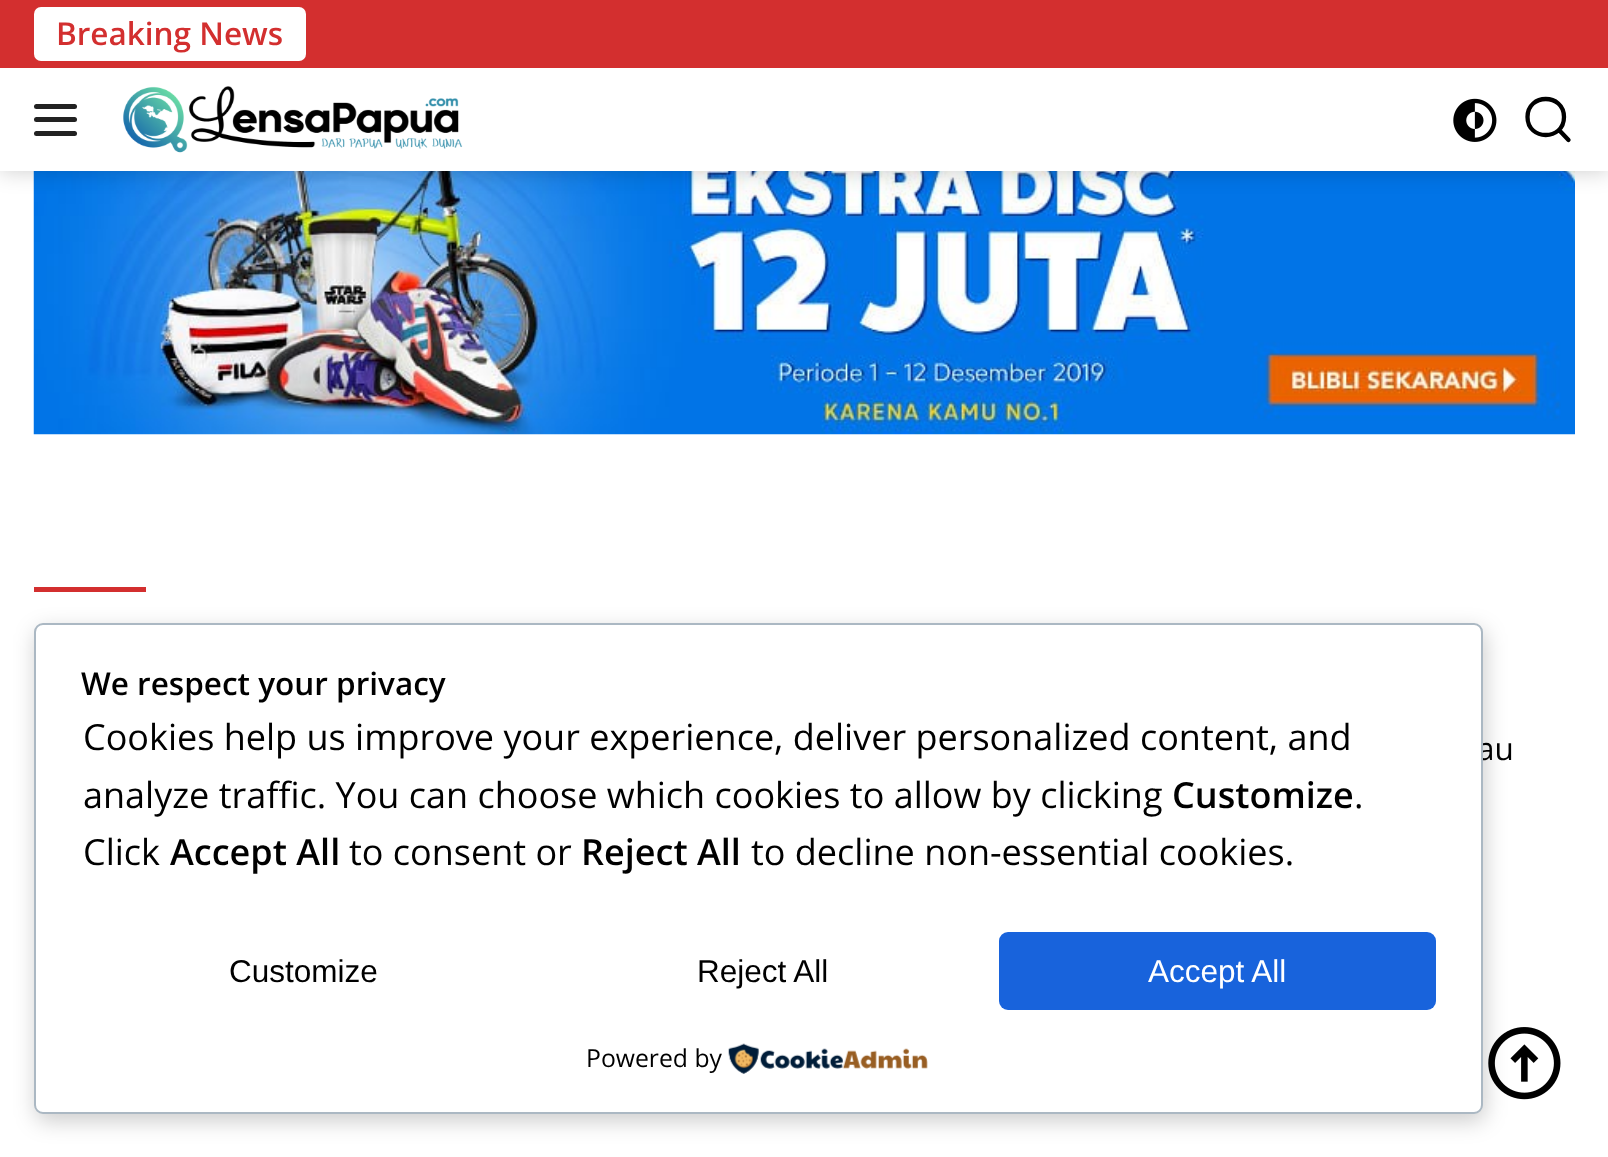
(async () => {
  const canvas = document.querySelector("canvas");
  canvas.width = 1608;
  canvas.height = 1157;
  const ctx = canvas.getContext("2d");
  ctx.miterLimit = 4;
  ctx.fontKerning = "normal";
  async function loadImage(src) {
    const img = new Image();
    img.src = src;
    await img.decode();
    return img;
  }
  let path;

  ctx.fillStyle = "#ffffff";
  ctx.fillRect(0, 0, 1608, 1157);
  ctx.drawImage(await loadImage("img/4.png"), 33, 171, 1542, 264);
  ctx.fillStyle = "rgba(0, 0, 0, 0.2)";
  ctx.filter = "blur(11px)";
  ctx.beginPath();
  ctx.rect(0, 0, 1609, 171);
  ctx.fill();
  ctx.filter = "none";
  ctx.fillStyle = "#ffffff";
  ctx.fillRect(0, 68, 1608, 103);
  ctx.fillStyle = "#d32f2f";
  ctx.fillRect(0, 0, 1608, 68);
  ctx.fillStyle = "#ffffff";
  ctx.beginPath();
  ctx.roundRect(34, 7, 272, 54, 7);
  ctx.fill();
  ctx.fillStyle = "#222222";
  ctx.beginPath();
  ctx.roundRect(34, 104, 43, 5, 2.5);
  ctx.fill();
  ctx.beginPath();
  ctx.roundRect(34, 117, 43, 5, 2.5);
  ctx.fill();
  ctx.beginPath();
  ctx.roundRect(34, 131, 43, 5, 2.5);
  ctx.fill();
  ctx.drawImage(await loadImage("img/1.png"), 123, 86, 340, 67);
  ctx.drawImage(await loadImage("img/2.png"), 1453, 98, 44, 44);
  path = new Path2D("M1568.5 140L1559 130M1564 117C1564 141 1527.5 141 1527.5 117C1527.5 93 1564 93 1564 117Z");
  ctx.strokeStyle = "#000000";
  ctx.lineWidth = 4.3;
  ctx.lineCap = "round";
  ctx.stroke(path);
  ctx.drawImage(await loadImage("img/5.png"), 1488, 1027, 73, 73);
  ctx.fillStyle = "rgba(0, 0, 0, 0.2)";
  ctx.filter = "blur(11px)";
  ctx.beginPath();
  ctx.roundRect(36, 630, 1449, 491, 9);
  ctx.fill();
  ctx.filter = "none";
  ctx.fillStyle = "#d32f2f";
  ctx.fillRect(34, 587, 112, 5);
  ctx.font = "600 31.5px Open Sans";
  ctx.fillText("Breaking News", 56, 45);
  ctx.font = "31.5px Open Sans";
  ctx.fillStyle = "#000000";
  ctx.fillText("au", 1477, 760);
  ctx.fillStyle = "#ffffff";
  ctx.beginPath();
  ctx.roundRect(35, 624, 1447, 489, 8);
  ctx.fill();
  ctx.strokeStyle = "#abb8c3";
  ctx.lineWidth = 2;
  ctx.stroke();
  ctx.fillStyle = "#1863dc";
  ctx.beginPath();
  ctx.roundRect(999, 932, 437, 78, 9);
  ctx.fill();
  ctx.font = "31.5px Liberation Sans";
  ctx.fillStyle = "#ffffff";
  ctx.fillText("Accept All", 1148, 982);
  ctx.fillStyle = "#000000";
  ctx.fillText("Reject All", 697, 982);
  ctx.fillText("Customize", 229, 982);
  ctx.drawImage(await loadImage("img/3.png"), 728, 1043, 200, 31);
  ctx.font = "24.75px Open Sans";
  ctx.fillText("Powered by", 586, 1067);
  ctx.font = "36px Open Sans";
  ctx.fillText("to decline non-essential cookies.", 751, 865);
  ctx.font = "600 36px Open Sans";
  ctx.fillText("Reject All", 581, 865);
  ctx.font = "36px Open Sans";
  ctx.fillText("to consent or", 349, 865);
  ctx.font = "600 36px Open Sans";
  ctx.fillText("Accept All", 170, 865);
  ctx.font = "36px Open Sans";
  ctx.fillText("Click", 83, 865);
  ctx.fillText(".", 1354, 808);
  ctx.font = "600 36px Open Sans";
  ctx.fillText("Customize", 1172, 808);
  ctx.font = "36px Open Sans";
  ctx.fillText("analyze traffic. You can choose which cookies to allow by clicking", 83, 808);
  ctx.fillText("Cookies help us improve your experience, deliver personalized content, and", 83, 750);
  ctx.font = "600 31.5px Open Sans";
  ctx.fillText("We respect your privacy", 81, 695);
})();
